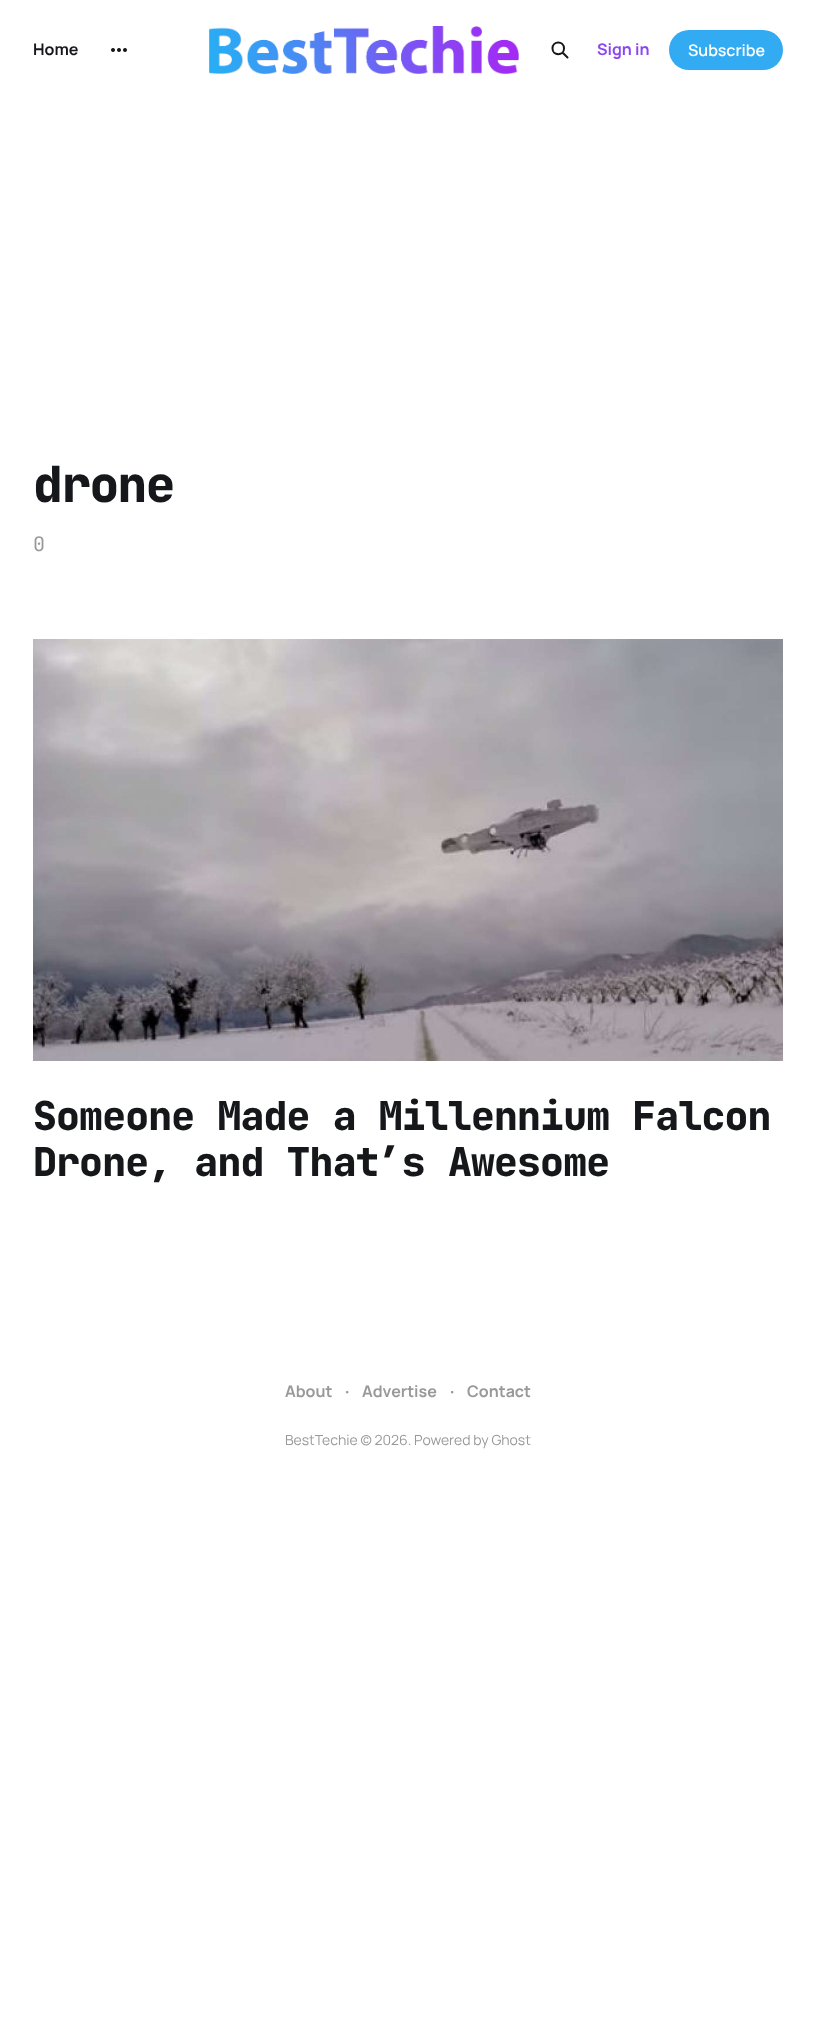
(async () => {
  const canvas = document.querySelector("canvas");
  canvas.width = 816;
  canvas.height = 2022;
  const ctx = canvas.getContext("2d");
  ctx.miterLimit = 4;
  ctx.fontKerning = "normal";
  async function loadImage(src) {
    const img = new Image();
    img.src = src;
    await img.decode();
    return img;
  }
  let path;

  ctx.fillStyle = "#ffffff";
  ctx.fillRect(0, 0, 816, 2022);
  ctx.drawImage(await loadImage("img/1.png"), 111, 48, 16, 4);
  ctx.drawImage(await loadImage("img/2.png"), 209, 26, 310, 48);
  path = new Path2D("M567.5 57.5L562.5 52.5ZM564 48.5C564 56 552.5 56 552.5 48.5C552.5 40.5 564 40.5 564 48.5Z");
  ctx.strokeStyle = "#15171a";
  ctx.lineWidth = 2;
  ctx.lineCap = "round";
  ctx.lineJoin = "round";
  ctx.stroke(path);
  ctx.fillStyle = "#33abf2";
  ctx.beginPath();
  ctx.roundRect(669, 30, 114, 40, 20);
  ctx.fill();
  ctx.drawImage(await loadImage("img/3.png"), 33, 639, 750, 422);
  ctx.font = "bold 16px Manrope";
  ctx.fillStyle = "#15171a";
  ctx.fillText("Home", 33, 55);
  ctx.fillStyle = "#8b46ef";
  ctx.fillText("Sign in", 597, 55);
  ctx.font = "600 16px Manrope";
  ctx.fillStyle = "#ffffff";
  ctx.fillText("Subscribe", 688, 56);
  ctx.letterSpacing = "-1.5px";
  ctx.font = "800 49.5px JetBrains Mono";
  ctx.fillStyle = "#15171a";
  ctx.fillText("drone", 33, 502);
  ctx.letterSpacing = "0px";
  ctx.font = "20px JetBrains Mono";
  ctx.fillStyle = "#999999";
  ctx.fillText("0", 33, 551);
  ctx.letterSpacing = "-0.8px";
  ctx.font = "800 39.75px JetBrains Mono";
  ctx.fillStyle = "#15171a";
  ctx.fillText("Someone Made a Millennium Falcon", 33, 1130);
  ctx.fillText("Drone, and That’s Awesome", 33, 1176);
  ctx.letterSpacing = "0px";
  ctx.font = "bold 16px Manrope";
  ctx.fillStyle = "#999999";
  ctx.fillText("About", 285, 1397);
  ctx.font = "bold 9px Manrope";
  ctx.fillText("•", 344, 1395);
  ctx.font = "bold 16px Manrope";
  ctx.fillText("Advertise", 362, 1397);
  ctx.font = "bold 9px Manrope";
  ctx.fillText("•", 449, 1395);
  ctx.font = "bold 16px Manrope";
  ctx.fillText("Contact", 467, 1397);
  ctx.font = "14px Manrope";
  ctx.fillText("BestTechie © 2026. Powered by Ghost", 285, 1445);
})();
